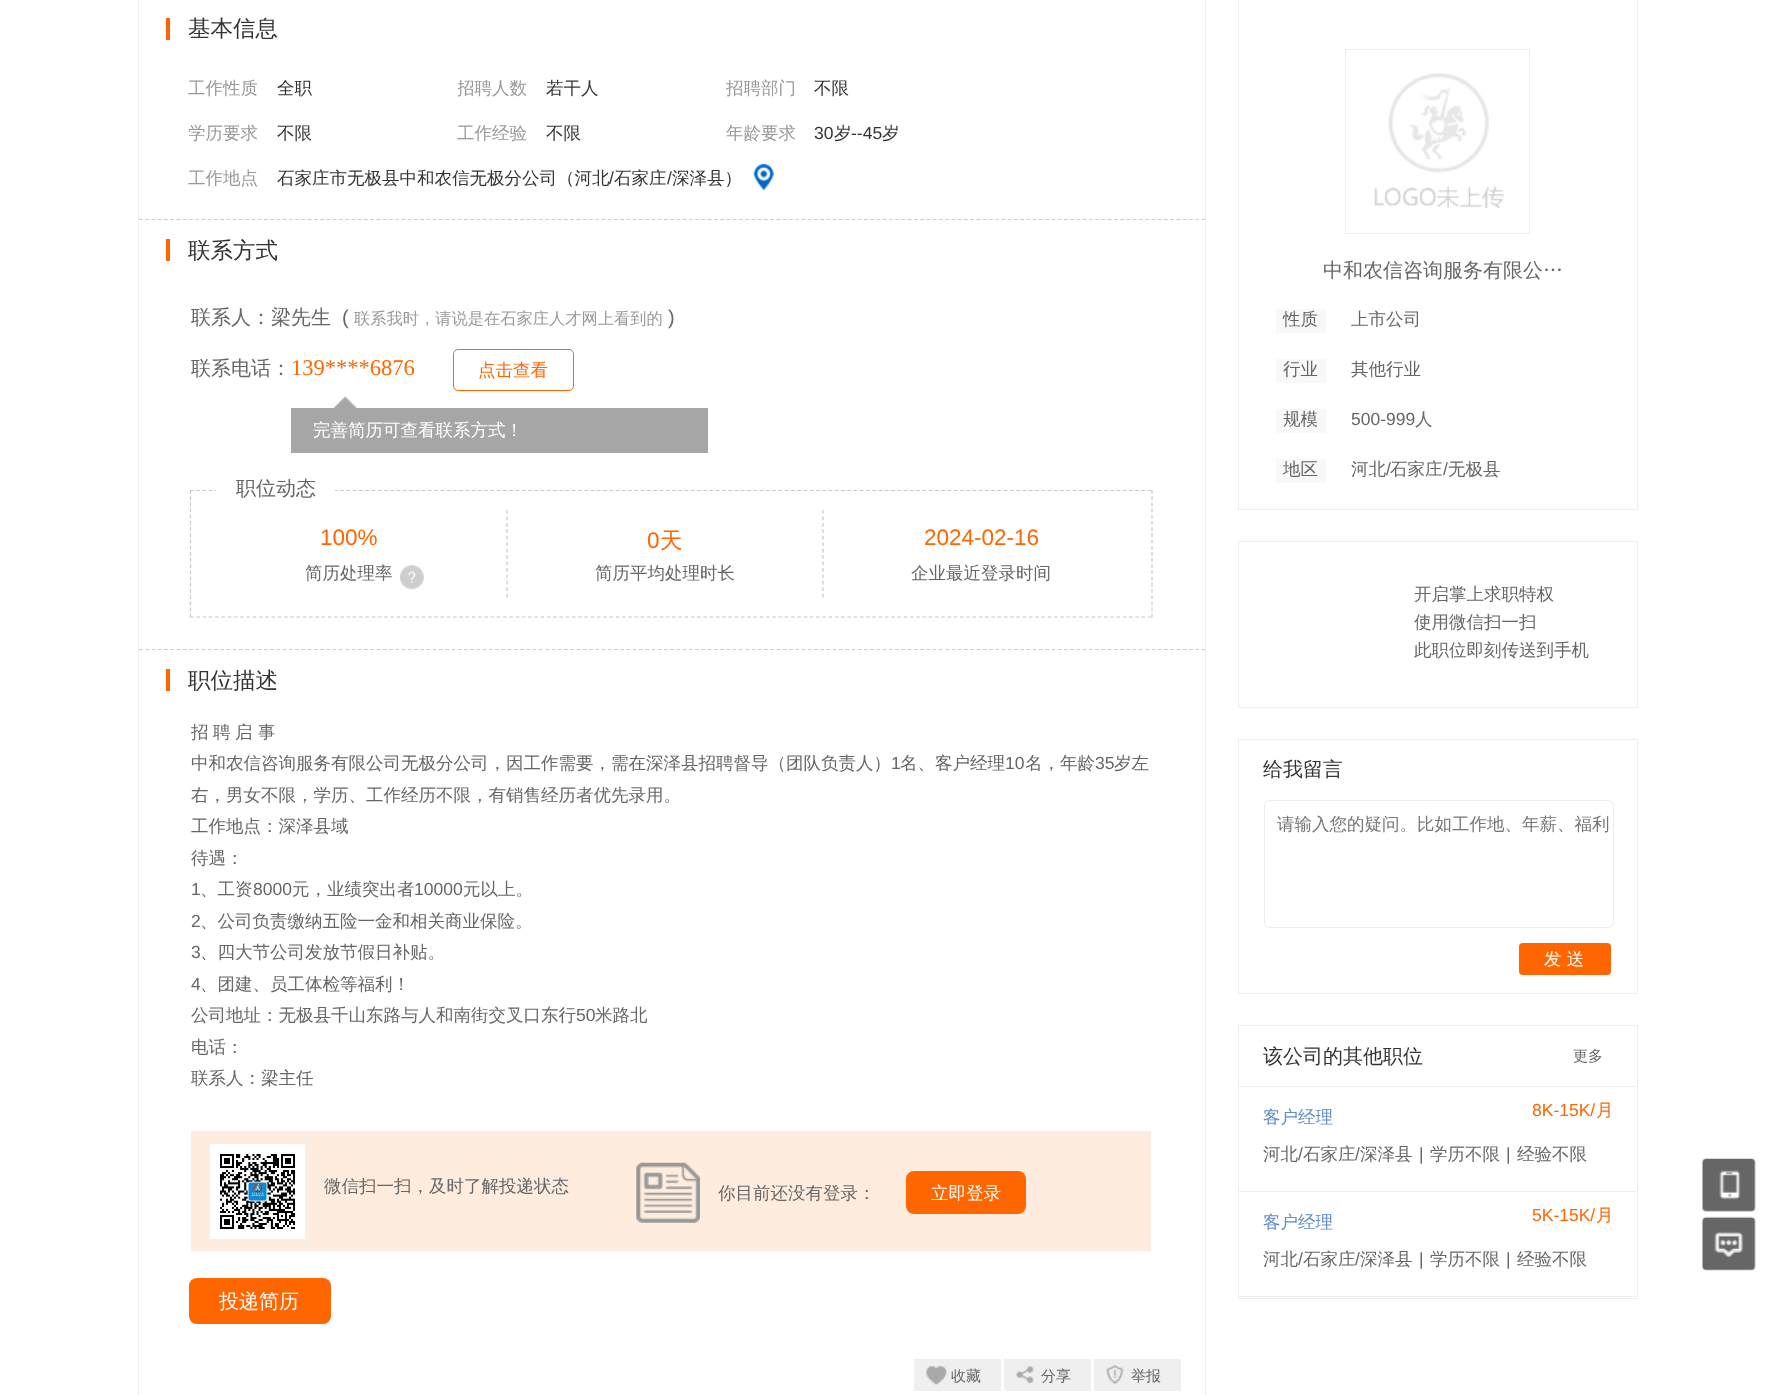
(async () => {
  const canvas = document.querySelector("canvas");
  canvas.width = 1773;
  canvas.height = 1395;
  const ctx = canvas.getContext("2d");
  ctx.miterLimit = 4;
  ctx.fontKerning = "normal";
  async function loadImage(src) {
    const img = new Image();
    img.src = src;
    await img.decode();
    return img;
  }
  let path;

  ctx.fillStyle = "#ffffff";
  ctx.fillRect(0, 0, 1773, 1395);
  ctx.strokeStyle = "#eeeeee";
  ctx.strokeRect(138.5, -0.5, 1067, 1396);
  path = new Path2D("M139 219.5H1205");
  ctx.strokeStyle = "#cccccc";
  ctx.lineWidth = 1.2;
  ctx.setLineDash([3.75, 2.5]);
  ctx.stroke(path);
  ctx.fillStyle = "#ff6600";
  ctx.fillRect(166, 18, 4, 22);
  ctx.drawImage(await loadImage("img/1.png"), 753, 164, 21, 27);
  path = new Path2D("M139 649.5H1205");
  ctx.stroke(path);
  ctx.fillRect(166, 239, 4, 22);
  ctx.beginPath();
  ctx.roundRect(453.5, 349.5, 120, 41, 4.5);
  ctx.strokeStyle = "#ff6600";
  ctx.lineWidth = 1;
  ctx.setLineDash([]);
  ctx.stroke();
  ctx.fillStyle = "#a6a6a6";
  ctx.fillRect(291, 408, 417, 45);
  ctx.drawImage(await loadImage("img/2.png"), 332, 396, 26, 12);
  path = new Path2D("M190 490.5H1152.5");
  ctx.strokeStyle = "#c8c8c8";
  ctx.lineWidth = 1.2;
  ctx.setLineDash([3.75, 2.51]);
  ctx.stroke(path);
  path = new Path2D("M1152 490V617.5");
  ctx.setLineDash([3.75, 2.44]);
  ctx.stroke(path);
  path = new Path2D("M190 617H1152.5");
  ctx.setLineDash([3.75, 2.51]);
  ctx.stroke(path);
  path = new Path2D("M190.5 490V617.5");
  ctx.setLineDash([3.75, 2.44]);
  ctx.stroke(path);
  ctx.fillStyle = "#ffffff";
  ctx.fillRect(216, 489, 119, 3);
  path = new Path2D("M507 510V597.5");
  ctx.setLineDash([3.75, 2.69]);
  ctx.stroke(path);
  ctx.drawImage(await loadImage("img/3.png"), 400, 565, 24, 25);
  path = new Path2D("M823 510V597.5");
  ctx.stroke(path);
  for (const [x, y, w, h, color] of [
    [166, 669, 4, 22, "#ff6600"],
    [191, 1131, 960, 120, "#feecde"],
    [210, 1144, 95, 95, "#ffffff"],
  ]) {
    ctx.fillStyle = color;
    ctx.fillRect(x, y, w, h);
  }
  ctx.drawImage(await loadImage("img/4.png"), 220, 1153, 75, 76);
  ctx.drawImage(await loadImage("img/5.png"), 636, 1162, 64, 61);
  ctx.fillStyle = "#ff6600";
  ctx.beginPath();
  ctx.roundRect(906, 1171, 120, 43, 8);
  ctx.fill();
  ctx.beginPath();
  ctx.roundRect(189, 1278, 142, 46, 8);
  ctx.fill();
  ctx.fillStyle = "#efefef";
  ctx.fillRect(914, 1359, 87, 32);
  ctx.drawImage(await loadImage("img/6.png"), 926, 1365, 21, 20);
  ctx.fillRect(1004, 1359, 87, 32);
  ctx.drawImage(await loadImage("img/7.png"), 1016, 1366, 18, 18);
  ctx.fillRect(1094, 1359, 87, 32);
  ctx.drawImage(await loadImage("img/8.png"), 1106, 1365, 18, 20);
  ctx.strokeStyle = "#eeeeee";
  ctx.lineWidth = 1;
  ctx.setLineDash([]);
  ctx.strokeRect(1238.5, -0.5, 399, 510);
  ctx.strokeRect(1345.5, 49.5, 184, 184);
  ctx.drawImage(await loadImage("img/9.png"), 1374, 73, 130, 136);
  for (const [x, y, w, h, color] of [
    [1276, 309, 50, 24, "#f8f8f8"],
    [1276, 359, 50, 24, "#f8f8f8"],
    [1276, 409, 50, 24, "#f8f8f8"],
    [1276, 459, 50, 24, "#f8f8f8"],
  ]) {
    ctx.fillStyle = color;
    ctx.fillRect(x, y, w, h);
  }
  ctx.strokeRect(1238.5, 541.5, 399, 166);
  ctx.strokeRect(1238.5, 739.5, 399, 254);
  ctx.beginPath();
  ctx.roundRect(1264.5, 800.5, 349, 127, 5.5);
  ctx.strokeStyle = "#ededed";
  ctx.stroke();
  ctx.fillStyle = "#ff6600";
  ctx.beginPath();
  ctx.roundRect(1519, 943, 92, 32, 4);
  ctx.fill();
  ctx.strokeStyle = "#eeeeee";
  ctx.strokeRect(1238.5, 1025.5, 399, 273);
  for (const [x, y, w, h, color] of [
    [1239, 1086, 397, 1, "#eeeeee"],
    [1239, 1191, 397, 1, "#eeeeee"],
    [1239, 1296, 397, 1, "#eeeeee"],
  ]) {
    ctx.fillStyle = color;
    ctx.fillRect(x, y, w, h);
  }
  ctx.drawImage(await loadImage("img/10.png"), 1702, 1158, 54, 54);
  ctx.drawImage(await loadImage("img/11.png"), 1702, 1216, 54, 55);
  ctx.font = "500 22.5px WenQuanYi Zen Hei";
  ctx.fillStyle = "#333333";
  ctx.fillText("基本信息", 188, 36);
  ctx.font = "500 17.5px WenQuanYi Zen Hei";
  ctx.fillStyle = "#999999";
  ctx.fillText("工作性质", 188, 94);
  ctx.fillStyle = "#333333";
  ctx.fillText("全职", 277, 94);
  ctx.save();
  ctx.beginPath();
  ctx.rect(458, 65, 268, 45);
  ctx.clip();
  ctx.fillStyle = "#999999";
  ctx.fillText("招聘人数", 457, 94);
  ctx.restore();
  ctx.fillText("若干人", 546, 94);
  ctx.save();
  ctx.beginPath();
  ctx.rect(726, 65, 269, 45);
  ctx.clip();
  ctx.fillStyle = "#999999";
  ctx.fillText("招聘部门", 726, 94);
  ctx.restore();
  ctx.fillText("不限", 814, 94);
  ctx.save();
  ctx.beginPath();
  ctx.rect(189, 110, 269, 45);
  ctx.clip();
  ctx.fillStyle = "#999999";
  ctx.fillText("学历要求", 188, 139);
  ctx.restore();
  ctx.fillText("不限", 277, 139);
  ctx.fillStyle = "#999999";
  ctx.fillText("工作经验", 457, 139);
  ctx.fillStyle = "#333333";
  ctx.fillText("不限", 546, 139);
  ctx.fillStyle = "#999999";
  ctx.fillText("年龄要求", 726, 139);
  ctx.font = "17.5px Liberation Sans";
  ctx.fillStyle = "#333333";
  ctx.fillText("30", 814, 139);
  ctx.font = "500 17.5px WenQuanYi Zen Hei";
  ctx.fillText("岁", 834, 139);
  ctx.font = "17.5px Liberation Sans";
  ctx.fillText("--45", 851, 139);
  ctx.font = "500 17.5px WenQuanYi Zen Hei";
  ctx.fillText("岁", 882, 139);
  ctx.fillStyle = "#999999";
  ctx.fillText("工作地点", 188, 184);
  ctx.fillStyle = "#333333";
  ctx.fillText("石家庄市无极县中和农信无极分公司（河北", 277, 184);
  ctx.font = "17.5px Liberation Sans";
  ctx.fillText("/", 609, 184);
  ctx.font = "500 17.5px WenQuanYi Zen Hei";
  ctx.fillText("石家庄", 614, 184);
  ctx.font = "17.5px Liberation Sans";
  ctx.fillText("/", 667, 184);
  ctx.font = "500 17.5px WenQuanYi Zen Hei";
  ctx.fillText("深泽县）", 672, 184);
  ctx.font = "500 22.5px WenQuanYi Zen Hei";
  ctx.fillText("联系方式", 188, 258);
  ctx.font = "500 20px WenQuanYi Zen Hei";
  ctx.fillStyle = "#666666";
  ctx.fillText("联系人：梁先生", 191, 324);
  ctx.font = "20px Liberation Sans";
  ctx.fillText("(", 342, 324);
  ctx.font = "500 16.25px WenQuanYi Zen Hei";
  ctx.fillStyle = "#999999";
  ctx.fillText("联系我时，请说是在石家庄人才网上看到的", 354, 324);
  ctx.font = "20px Liberation Sans";
  ctx.fillStyle = "#666666";
  ctx.fillText(")", 668, 324);
  ctx.font = "500 20px WenQuanYi Zen Hei";
  ctx.fillText("联系电话：", 191, 375);
  ctx.font = "22.5px Liberation Serif";
  ctx.fillStyle = "#ff6600";
  ctx.fillText("139****6876", 291, 375);
  ctx.font = "500 17.5px WenQuanYi Zen Hei";
  ctx.fillText("点击查看", 478, 376);
  ctx.fillStyle = "#ffffff";
  ctx.fillText("完善简历可查看联系方式！", 313, 436);
  ctx.font = "500 20px WenQuanYi Zen Hei";
  ctx.fillStyle = "#666666";
  ctx.fillText("职位动态", 236, 495);
  ctx.font = "22.5px Liberation Sans";
  ctx.fillStyle = "#ff6600";
  ctx.fillText("100%", 320, 545);
  ctx.font = "500 17.5px WenQuanYi Zen Hei";
  ctx.fillStyle = "#666666";
  ctx.fillText("简历处理率", 305, 579);
  ctx.font = "22.5px Liberation Sans";
  ctx.fillStyle = "#ff6600";
  ctx.fillText("0", 647, 548);
  ctx.font = "500 22.5px WenQuanYi Zen Hei";
  ctx.fillText("天", 660, 548);
  ctx.font = "500 17.5px WenQuanYi Zen Hei";
  ctx.fillStyle = "#666666";
  ctx.fillText("简历平均处理时长", 595, 579);
  ctx.font = "22.5px Liberation Sans";
  ctx.fillStyle = "#ff6600";
  ctx.fillText("2024-02-16", 924, 545);
  ctx.font = "500 17.5px WenQuanYi Zen Hei";
  ctx.fillStyle = "#666666";
  ctx.fillText("企业最近登录时间", 911, 579);
  ctx.font = "500 22.5px WenQuanYi Zen Hei";
  ctx.fillStyle = "#333333";
  ctx.fillText("职位描述", 188, 688);
  ctx.font = "500 17.5px WenQuanYi Zen Hei";
  ctx.fillStyle = "#666666";
  for (const [text, x, y] of [
    ["招", 191, 738],
    ["聘", 213, 738],
    ["启", 235, 738],
    ["事", 258, 738],
    ["中和农信咨询服务有限公司无极分公司，因工作需要，需在深泽县招聘督导（团队负责人）", 191, 769],
  ]) {
    ctx.fillText(text, x, y);
  }
  ctx.font = "17.5px Liberation Sans";
  ctx.fillText("1", 891, 769);
  ctx.font = "500 17.5px WenQuanYi Zen Hei";
  ctx.fillText("名、客户经理", 900, 769);
  ctx.font = "17.5px Liberation Sans";
  ctx.fillText("10", 1005, 769);
  ctx.font = "500 17.5px WenQuanYi Zen Hei";
  ctx.fillText("名，年龄", 1025, 769);
  ctx.font = "17.5px Liberation Sans";
  ctx.fillText("35", 1095, 769);
  ctx.font = "500 17.5px WenQuanYi Zen Hei";
  for (const [text, x, y] of [
    ["岁左", 1114, 769],
    ["右，男女不限，学历、工作经历不限，有销售经历者优先录用。", 191, 801],
    ["工作地点：深泽县域", 191, 832],
    ["待遇：", 191, 864],
  ]) {
    ctx.fillText(text, x, y);
  }
  ctx.font = "17.5px Liberation Sans";
  ctx.fillText("1", 191, 895);
  ctx.font = "500 17.5px WenQuanYi Zen Hei";
  ctx.fillText("、工资", 200, 895);
  ctx.font = "17.5px Liberation Sans";
  ctx.fillText("8000", 253, 895);
  ctx.font = "500 17.5px WenQuanYi Zen Hei";
  ctx.fillText("元，业绩突出者", 292, 895);
  ctx.font = "17.5px Liberation Sans";
  ctx.fillText("10000", 414, 895);
  ctx.font = "500 17.5px WenQuanYi Zen Hei";
  ctx.fillText("元以上。", 463, 895);
  ctx.font = "17.5px Liberation Sans";
  ctx.fillText("2", 191, 927);
  ctx.font = "500 17.5px WenQuanYi Zen Hei";
  ctx.fillText("、公司负责缴纳五险一金和相关商业保险。", 200, 927);
  ctx.font = "17.5px Liberation Sans";
  ctx.fillText("3", 191, 958);
  ctx.font = "500 17.5px WenQuanYi Zen Hei";
  ctx.fillText("、四大节公司发放节假日补贴。", 200, 958);
  ctx.font = "17.5px Liberation Sans";
  ctx.fillText("4", 191, 990);
  ctx.font = "500 17.5px WenQuanYi Zen Hei";
  ctx.fillText("、团建、员工体检等福利！", 200, 990);
  ctx.fillText("公司地址：无极县千山东路与人和南街交叉口东行", 191, 1021);
  ctx.font = "17.5px Liberation Sans";
  ctx.fillText("50", 576, 1021);
  ctx.font = "500 17.5px WenQuanYi Zen Hei";
  for (const [text, x, y] of [
    ["米路北", 595, 1021],
    ["电话：", 191, 1053],
    ["联系人：梁主任", 191, 1084],
    ["微信扫一扫，及时了解投递状态", 324, 1192],
    ["你目前还没有登录：", 718, 1199],
  ]) {
    ctx.fillText(text, x, y);
  }
  ctx.fillStyle = "#ffffff";
  ctx.fillText("立即登录", 931, 1199);
  ctx.font = "500 20px WenQuanYi Zen Hei";
  ctx.fillText("投递简历", 219, 1308);
  ctx.font = "500 15px WenQuanYi Zen Hei";
  ctx.fillStyle = "#666666";
  for (const [text, x, y] of [
    ["收藏", 951, 1381],
    ["分享", 1041, 1381],
    ["举报", 1131, 1381],
  ]) {
    ctx.fillText(text, x, y);
  }
  ctx.font = "500 20px WenQuanYi Zen Hei";
  ctx.fillText("中和农信咨询服务有限公…", 1323, 277);
  ctx.font = "500 17.5px WenQuanYi Zen Hei";
  for (const [text, x, y] of [
    ["性质", 1283, 325],
    ["上市公司", 1351, 325],
    ["行业", 1283, 375],
    ["其他行业", 1351, 375],
    ["规模", 1283, 425],
  ]) {
    ctx.fillText(text, x, y);
  }
  ctx.font = "17.5px Liberation Sans";
  ctx.fillText("500-999", 1351, 425);
  ctx.font = "500 17.5px WenQuanYi Zen Hei";
  for (const [text, x, y] of [
    ["人", 1415, 425],
    ["地区", 1283, 475],
    ["河北", 1351, 475],
  ]) {
    ctx.fillText(text, x, y);
  }
  ctx.font = "17.5px Liberation Sans";
  ctx.fillText("/", 1386, 475);
  ctx.font = "500 17.5px WenQuanYi Zen Hei";
  ctx.fillText("石家庄", 1390, 475);
  ctx.font = "17.5px Liberation Sans";
  ctx.fillText("/", 1443, 475);
  ctx.font = "500 17.5px WenQuanYi Zen Hei";
  for (const [text, x, y] of [
    ["无极县", 1448, 475],
    ["开启掌上求职特权", 1414, 600],
    ["使用微信扫一扫", 1414, 628],
    ["此职位即刻传送到手机", 1414, 656],
  ]) {
    ctx.fillText(text, x, y);
  }
  ctx.font = "500 20px WenQuanYi Zen Hei";
  ctx.fillStyle = "#333333";
  ctx.fillText("给我留言", 1263, 776);
  ctx.font = "500 17.5px WenQuanYi Zen Hei";
  ctx.fillStyle = "#757575";
  ctx.fillText("请输入您的疑问。比如工作地、年薪、福利", 1277, 830);
  ctx.fillStyle = "#ffffff";
  ctx.fillText("发 送", 1544, 965);
  ctx.font = "500 20px WenQuanYi Zen Hei";
  ctx.fillStyle = "#333333";
  ctx.fillText("该公司的其他职位", 1263, 1063);
  ctx.font = "500 15px WenQuanYi Zen Hei";
  ctx.fillStyle = "#666666";
  ctx.fillText("更多", 1573, 1061);
  ctx.font = "500 17.5px WenQuanYi Zen Hei";
  ctx.fillStyle = "#5f8dc9";
  ctx.fillText("客户经理", 1263, 1123);
  ctx.font = "17.5px Liberation Sans";
  ctx.fillStyle = "#ff6600";
  ctx.fillText("8K-15K/", 1532, 1116);
  ctx.font = "500 17.5px WenQuanYi Zen Hei";
  ctx.fillText("月", 1596, 1116);
  ctx.fillStyle = "#666666";
  ctx.fillText("河北", 1263, 1160);
  ctx.font = "17.5px Liberation Sans";
  ctx.fillText("/", 1298, 1160);
  ctx.font = "500 17.5px WenQuanYi Zen Hei";
  ctx.fillText("石家庄", 1303, 1160);
  ctx.font = "17.5px Liberation Sans";
  ctx.fillText("/", 1355, 1160);
  ctx.font = "500 17.5px WenQuanYi Zen Hei";
  ctx.fillText("深泽县", 1360, 1160);
  ctx.font = "17.5px Liberation Sans";
  ctx.fillText("|", 1419, 1160);
  ctx.font = "500 17.5px WenQuanYi Zen Hei";
  ctx.fillText("学历不限", 1430, 1160);
  ctx.font = "17.5px Liberation Sans";
  ctx.fillText("|", 1506, 1160);
  ctx.font = "500 17.5px WenQuanYi Zen Hei";
  ctx.fillText("经验不限", 1517, 1160);
  ctx.fillStyle = "#5f8dc9";
  ctx.fillText("客户经理", 1263, 1228);
  ctx.font = "17.5px Liberation Sans";
  ctx.fillStyle = "#ff6600";
  ctx.fillText("5K-15K/", 1532, 1221);
  ctx.font = "500 17.5px WenQuanYi Zen Hei";
  ctx.fillText("月", 1596, 1221);
  ctx.fillStyle = "#666666";
  ctx.fillText("河北", 1263, 1265);
  ctx.font = "17.5px Liberation Sans";
  ctx.fillText("/", 1298, 1265);
  ctx.font = "500 17.5px WenQuanYi Zen Hei";
  ctx.fillText("石家庄", 1303, 1265);
  ctx.font = "17.5px Liberation Sans";
  ctx.fillText("/", 1355, 1265);
  ctx.font = "500 17.5px WenQuanYi Zen Hei";
  ctx.fillText("深泽县", 1360, 1265);
  ctx.font = "17.5px Liberation Sans";
  ctx.fillText("|", 1419, 1265);
  ctx.font = "500 17.5px WenQuanYi Zen Hei";
  ctx.fillText("学历不限", 1430, 1265);
  ctx.font = "17.5px Liberation Sans";
  ctx.fillText("|", 1506, 1265);
  ctx.font = "500 17.5px WenQuanYi Zen Hei";
  ctx.fillText("经验不限", 1517, 1265);
})();
